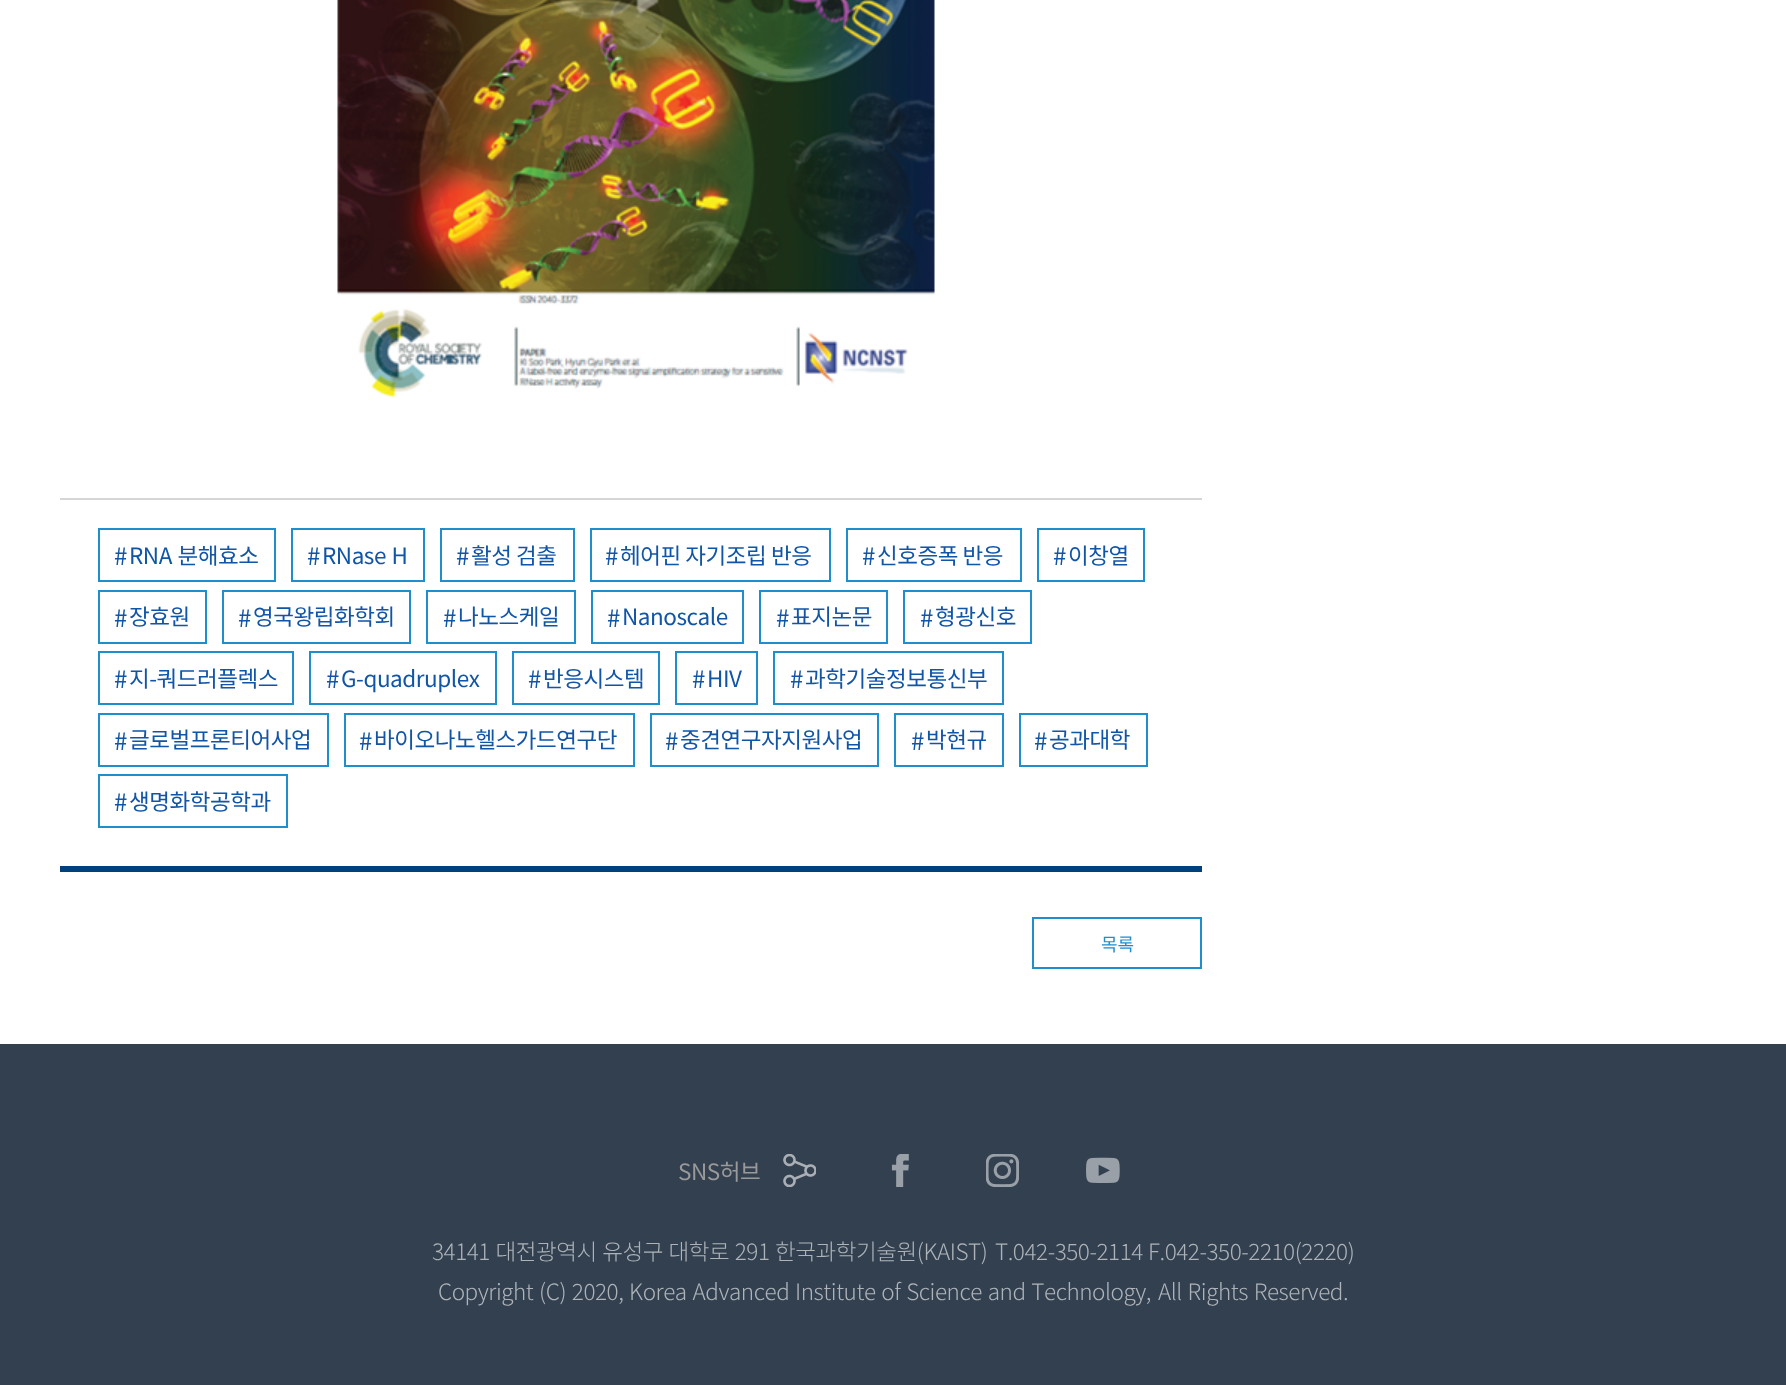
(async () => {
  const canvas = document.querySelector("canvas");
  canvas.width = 1786;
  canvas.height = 1385;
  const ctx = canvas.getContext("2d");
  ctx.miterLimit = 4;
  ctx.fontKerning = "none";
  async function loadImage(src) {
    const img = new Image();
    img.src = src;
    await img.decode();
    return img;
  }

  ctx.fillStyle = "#ffffff";
  ctx.fillRect(0, 0, 1786, 1385);
  ctx.drawImage(await loadImage("img/1.png"), 337, 0, 598, 398);
  ctx.fillStyle = "#d5d5d5";
  ctx.fillRect(60, 498, 1142, 2);
  ctx.strokeStyle = "#1f8ecd";
  ctx.lineWidth = 2;
  ctx.strokeRect(99, 529, 176, 52);
  ctx.strokeRect(292, 529, 132, 52);
  ctx.strokeRect(441, 529, 133, 52);
  ctx.strokeRect(591, 529, 239, 52);
  ctx.strokeRect(847, 529, 174, 52);
  ctx.strokeRect(1038, 529, 106, 52);
  ctx.strokeRect(99, 591, 107, 52);
  ctx.strokeRect(223, 591, 187, 52);
  ctx.strokeRect(427, 591, 148, 52);
  ctx.strokeRect(592, 591, 151, 52);
  ctx.strokeRect(760, 591, 127, 52);
  ctx.strokeRect(904, 591, 127, 52);
  ctx.strokeRect(99, 652, 194, 52);
  ctx.strokeRect(310, 652, 186, 52);
  ctx.strokeRect(513, 652, 146, 52);
  ctx.strokeRect(676, 652, 81, 52);
  ctx.strokeRect(774, 652, 229, 52);
  ctx.strokeRect(99, 714, 229, 52);
  ctx.strokeRect(345, 714, 289, 52);
  ctx.strokeRect(651, 714, 227, 52);
  ctx.strokeRect(895, 714, 108, 52);
  ctx.strokeRect(1020, 714, 127, 52);
  ctx.strokeRect(99, 775, 188, 52);
  ctx.fillStyle = "#00407f";
  ctx.fillRect(60, 866, 1142, 6);
  ctx.strokeRect(1033, 918, 168, 50);
  ctx.fillStyle = "#334050";
  ctx.fillRect(0, 1044, 1786, 341);
  ctx.drawImage(await loadImage("img/2.png"), 783, 1154, 33, 33);
  ctx.drawImage(await loadImage("img/3.png"), 891, 1154, 18, 33);
  ctx.drawImage(await loadImage("img/4.png"), 986, 1154, 33, 33);
  ctx.drawImage(await loadImage("img/5.png"), 1086, 1157, 34, 26);
  ctx.letterSpacing = "-0.45px";
  ctx.font = "24px Noto Sans CJK KR";
  ctx.fillStyle = "#1155a7";
  ctx.fillText("#", 114, 565);
  ctx.wordSpacing = "1px";
  ctx.font = "22.5px Noto Sans CJK KR";
  ctx.fillText("RNA 분해효소", 129, 564);
  ctx.wordSpacing = "0px";
  ctx.font = "24px Noto Sans CJK KR";
  ctx.fillText("#", 307, 565);
  ctx.wordSpacing = "1px";
  ctx.font = "22.5px Noto Sans CJK KR";
  ctx.fillText("RNase H", 322, 564);
  ctx.wordSpacing = "0px";
  ctx.font = "24px Noto Sans CJK KR";
  ctx.fillText("#", 456, 565);
  ctx.font = "22.5px Noto Sans CJK KR";
  ctx.fillText("활성 검출", 471, 564);
  ctx.font = "24px Noto Sans CJK KR";
  ctx.fillText("#", 605, 565);
  ctx.font = "22.5px Noto Sans CJK KR";
  ctx.fillText("헤어핀 자기조립 반응", 620, 564);
  ctx.font = "24px Noto Sans CJK KR";
  ctx.fillText("#", 862, 565);
  ctx.font = "22.5px Noto Sans CJK KR";
  ctx.fillText("신호증폭 반응", 877, 564);
  ctx.font = "24px Noto Sans CJK KR";
  ctx.fillText("#", 1053, 565);
  ctx.font = "22.5px Noto Sans CJK KR";
  ctx.fillText("이창열", 1068, 564);
  ctx.font = "24px Noto Sans CJK KR";
  ctx.fillText("#", 114, 627);
  ctx.font = "22.5px Noto Sans CJK KR";
  ctx.fillText("장효원", 129, 625);
  ctx.font = "24px Noto Sans CJK KR";
  ctx.fillText("#", 238, 627);
  ctx.font = "22.5px Noto Sans CJK KR";
  ctx.fillText("영국왕립화학회", 253, 625);
  ctx.font = "24px Noto Sans CJK KR";
  ctx.fillText("#", 443, 627);
  ctx.font = "22.5px Noto Sans CJK KR";
  ctx.fillText("나노스케일", 458, 625);
  ctx.font = "24px Noto Sans CJK KR";
  ctx.fillText("#", 607, 627);
  ctx.font = "22.5px Noto Sans CJK KR";
  ctx.fillText("Nanoscale", 622, 625);
  ctx.font = "24px Noto Sans CJK KR";
  ctx.fillText("#", 776, 627);
  ctx.font = "22.5px Noto Sans CJK KR";
  ctx.fillText("표지논문", 791, 625);
  ctx.font = "24px Noto Sans CJK KR";
  ctx.fillText("#", 920, 627);
  ctx.font = "22.5px Noto Sans CJK KR";
  ctx.fillText("형광신호", 935, 625);
  ctx.font = "24px Noto Sans CJK KR";
  ctx.fillText("#", 114, 688);
  ctx.font = "22.5px Noto Sans CJK KR";
  ctx.fillText("지-쿼드러플렉스", 129, 687);
  ctx.font = "24px Noto Sans CJK KR";
  ctx.fillText("#", 326, 688);
  ctx.font = "22.5px Noto Sans CJK KR";
  ctx.fillText("G-quadruplex", 341, 687);
  ctx.font = "24px Noto Sans CJK KR";
  ctx.fillText("#", 528, 688);
  ctx.font = "22.5px Noto Sans CJK KR";
  ctx.fillText("반응시스템", 543, 687);
  ctx.font = "24px Noto Sans CJK KR";
  ctx.fillText("#", 692, 688);
  ctx.font = "22.5px Noto Sans CJK KR";
  ctx.fillText("HIV", 707, 687);
  ctx.font = "24px Noto Sans CJK KR";
  ctx.fillText("#", 790, 688);
  ctx.font = "22.5px Noto Sans CJK KR";
  ctx.fillText("과학기술정보통신부", 805, 687);
  ctx.font = "24px Noto Sans CJK KR";
  ctx.fillText("#", 114, 750);
  ctx.font = "22.5px Noto Sans CJK KR";
  ctx.fillText("글로벌프론티어사업", 129, 748);
  ctx.font = "24px Noto Sans CJK KR";
  ctx.fillText("#", 359, 750);
  ctx.font = "22.5px Noto Sans CJK KR";
  ctx.fillText("바이오나노헬스가드연구단", 374, 748);
  ctx.font = "24px Noto Sans CJK KR";
  ctx.fillText("#", 665, 750);
  ctx.font = "22.5px Noto Sans CJK KR";
  ctx.fillText("중견연구자지원사업", 680, 748);
  ctx.font = "24px Noto Sans CJK KR";
  ctx.fillText("#", 911, 750);
  ctx.font = "22.5px Noto Sans CJK KR";
  ctx.fillText("박현규", 926, 748);
  ctx.font = "24px Noto Sans CJK KR";
  ctx.fillText("#", 1034, 750);
  ctx.font = "22.5px Noto Sans CJK KR";
  ctx.fillText("공과대학", 1049, 748);
  ctx.font = "24px Noto Sans CJK KR";
  ctx.fillText("#", 114, 811);
  ctx.font = "22.5px Noto Sans CJK KR";
  ctx.fillText("생명화학공학과", 129, 810);
  ctx.letterSpacing = "0px";
  ctx.font = "18px Noto Sans CJK KR";
  ctx.fillStyle = "#1f8ecd";
  ctx.fillText("목록", 1101, 951);
  ctx.letterSpacing = "-0.45px";
  ctx.font = "22.5px Noto Sans CJK KR";
  ctx.fillStyle = "#999999";
  ctx.fillText("SNS허브", 678, 1180);
  ctx.wordSpacing = "1px";
  ctx.font = "300 22.5px Noto Sans CJK KR";
  ctx.fillStyle = "#adb3b9";
  ctx.fillText("34141 대전광역시 유성구 대학로 291 한국과학기술원(KAIST)", 432, 1260);
  ctx.wordSpacing = "0px";
  ctx.fillText("T.042-350-2114", 995, 1260);
  ctx.fillText("F.042-350-2210(2220)", 1148, 1260);
  ctx.wordSpacing = "1.25px";
  ctx.fillText("Copyright (C) 2020, Korea Advanced Institute of Science and Technology,", 438, 1300);
  ctx.fillText("All Rights Reserved.", 1158, 1300);
})();
